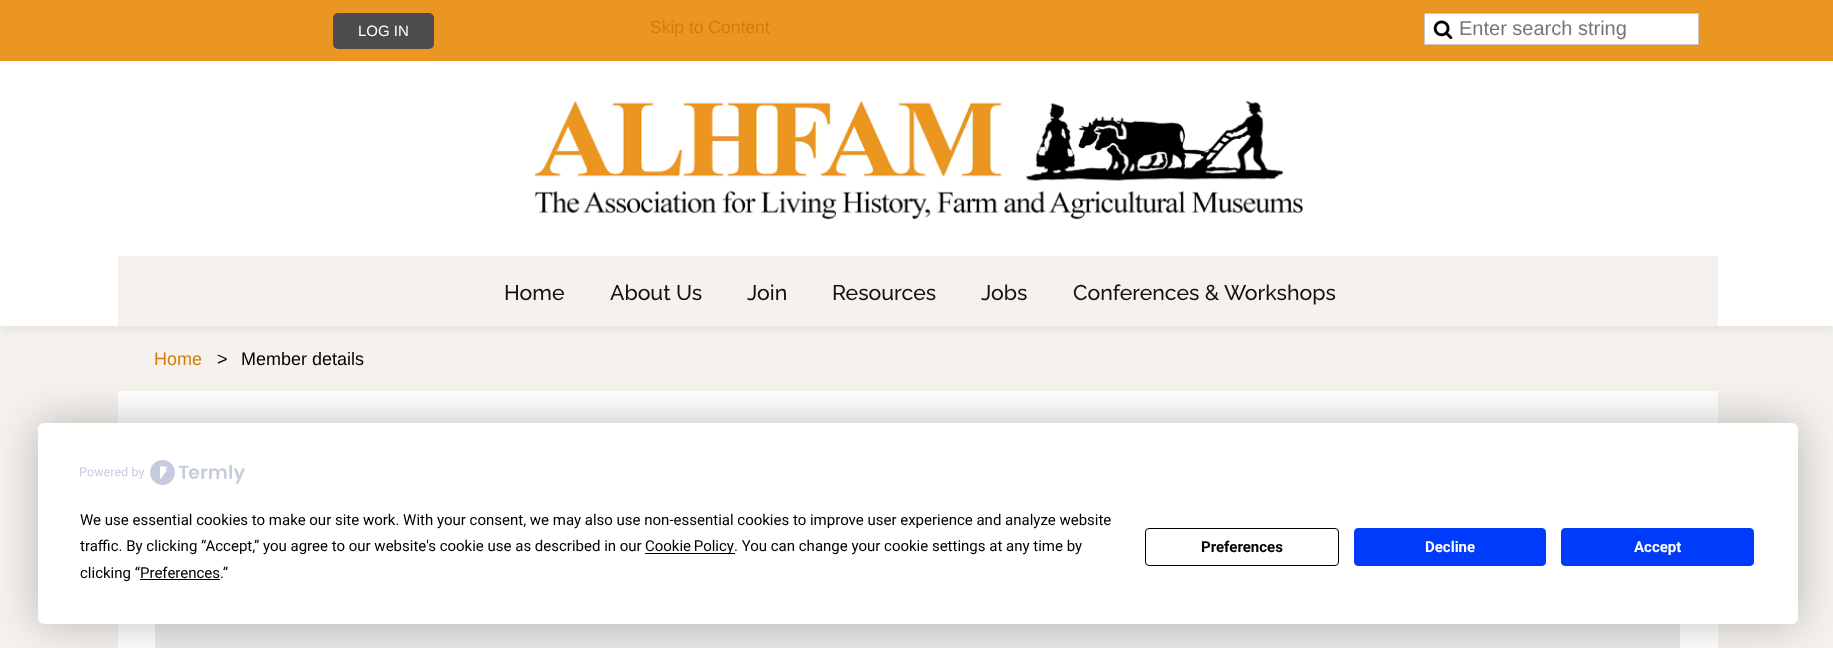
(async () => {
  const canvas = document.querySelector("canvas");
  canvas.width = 1833;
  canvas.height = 648;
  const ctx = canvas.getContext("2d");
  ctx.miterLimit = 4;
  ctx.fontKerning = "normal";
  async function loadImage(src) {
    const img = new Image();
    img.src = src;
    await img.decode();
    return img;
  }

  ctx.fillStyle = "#f5f2ee";
  ctx.fillRect(0, 0, 1833, 648);
  ctx.fillStyle = "#eb9622";
  ctx.fillRect(0, 0, 1833, 61);
  ctx.fillStyle = "#4c4c4c";
  ctx.beginPath();
  ctx.roundRect(333, 13, 101, 36, 5);
  ctx.fill();
  ctx.fillStyle = "#ffffff";
  ctx.beginPath();
  ctx.rect(1424.5, 13.5, 274, 31);
  ctx.fill();
  ctx.strokeStyle = "#c6c6c6";
  ctx.stroke();
  ctx.drawImage(await loadImage("img/1.png"), 1433, 20, 20, 20);
  ctx.fillStyle = "rgba(216, 210, 200, 0.4)";
  ctx.filter = "blur(3px)";
  ctx.beginPath();
  ctx.rect(1, 69, 1832, 262);
  ctx.fill();
  ctx.filter = "none";
  ctx.fillStyle = "#ffffff";
  ctx.fillRect(0, 61, 1833, 265);
  ctx.drawImage(await loadImage("img/2.png"), 534, 100, 769, 120);
  for (const [x, y, w, h, color] of [
    [118, 256, 1600, 70, "#f5f2ee"],
    [118, 391, 1600, 257, "#ffffff"],
    [155, 624, 1525, 24, "#eaeaea"],
  ]) {
    ctx.fillStyle = color;
    ctx.fillRect(x, y, w, h);
  }
  ctx.fillStyle = "rgba(0, 0, 0, 0.25)";
  ctx.filter = "blur(22px)";
  ctx.beginPath();
  ctx.roundRect(38, 423, 1760, 201, 6);
  ctx.fill();
  ctx.filter = "none";
  ctx.fillStyle = "#ffffff";
  ctx.beginPath();
  ctx.roundRect(38, 423, 1760, 201, 6);
  ctx.fill();
  ctx.drawImage(await loadImage("img/3.png"), 80, 460, 165, 25);
  ctx.fillStyle = "#000000";
  ctx.fillRect(645, 553, 90, 1);
  ctx.fillRect(140, 579, 80, 1);
  ctx.beginPath();
  ctx.roundRect(1145.5, 528.5, 193, 37, 3.5);
  ctx.strokeStyle = "#000000";
  ctx.stroke();
  ctx.fillStyle = "#003afa";
  ctx.beginPath();
  ctx.roundRect(1354.5, 528.5, 191, 37, 3.5);
  ctx.fill();
  ctx.strokeStyle = "#003afa";
  ctx.stroke();
  ctx.beginPath();
  ctx.roundRect(1561.5, 528.5, 192, 37, 3.5);
  ctx.fill();
  ctx.stroke();
  ctx.font = "15px Liberation Sans";
  ctx.fillStyle = "#ffffff";
  ctx.fillText("LOG IN", 358, 36);
  ctx.font = "17.5px Liberation Sans";
  ctx.fillStyle = "#d27d0a";
  ctx.fillText("Skip to Content", 650, 33);
  ctx.font = "20px Liberation Sans";
  ctx.fillStyle = "#757575";
  ctx.fillText("Enter search string", 1459, 35);
  ctx.font = "500 21.25px Raleway";
  ctx.fillStyle = "#111111";
  for (const [text, x, y] of [
    ["Home", 504, 300],
    ["About Us", 610, 300],
    ["Join", 747, 300],
    ["Resources", 832, 300],
    ["Jobs", 981, 300],
    ["Conferences & Workshops", 1073, 300],
  ]) {
    ctx.fillText(text, x, y);
  }
  ctx.font = "18px Liberation Sans";
  ctx.fillStyle = "#d27d0a";
  ctx.fillText("Home", 154, 365);
  ctx.fillStyle = "#000000";
  ctx.fillText(">", 217, 365);
  ctx.fillText("Member details", 241, 365);
  ctx.font = "15px Roboto";
  ctx.fillText("We use essential cookies to make our site work. With your consent, we may also use non-essential cookies to improve user experience and analyze website", 80, 525);
  ctx.fillText("traffic. By clicking “Accept,” you agree to our website's cookie use as described in our", 80, 551);
  ctx.wordSpacing = "-1px";
  ctx.fillText("Cookie Policy", 645, 551);
  ctx.wordSpacing = "0px";
  ctx.fillText(". You can change your cookie settings at any time by", 734, 551);
  ctx.fillText("clicking “Preferences.”", 80, 578);
  ctx.font = "bold 15px Roboto";
  ctx.fillText("Preferences", 1201, 552);
  ctx.fillStyle = "#ffffff";
  ctx.fillText("Decline", 1425, 552);
  ctx.fillText("Accept", 1634, 552);
})();
